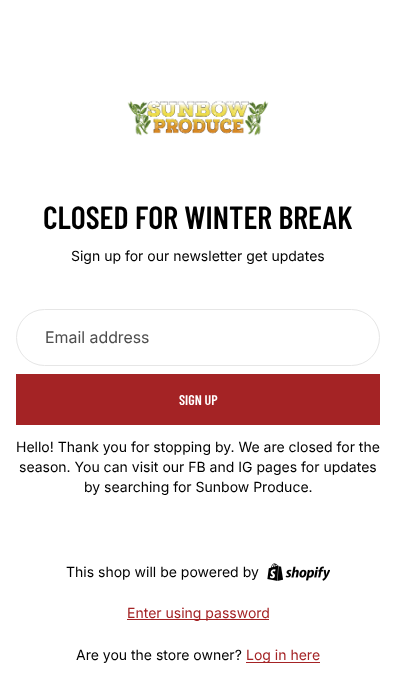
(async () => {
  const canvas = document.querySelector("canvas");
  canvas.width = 396;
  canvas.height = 685;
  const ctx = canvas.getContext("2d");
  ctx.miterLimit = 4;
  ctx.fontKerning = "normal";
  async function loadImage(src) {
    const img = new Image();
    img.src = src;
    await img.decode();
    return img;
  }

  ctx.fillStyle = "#ffffff";
  ctx.fillRect(0, 0, 396, 685);
  ctx.drawImage(await loadImage("img/1.png"), 127, 100, 142, 36);
  ctx.beginPath();
  ctx.roundRect(16.5, 309.5, 363, 56, 28);
  ctx.strokeStyle = "#e6e6e6";
  ctx.stroke();
  ctx.fillStyle = "#a42325";
  ctx.fillRect(16, 374, 364, 51);
  ctx.drawImage(await loadImage("img/2.png"), 267, 563, 63, 18);
  ctx.fillRect(127, 619, 142, 1);
  ctx.fillRect(246, 662, 74, 1);
  ctx.font = "600 32px Barlow Condensed";
  ctx.fillStyle = "#000000";
  ctx.fillText("CLOSED FOR WINTER BREAK", 43, 229);
  ctx.font = "14px Inter";
  ctx.fillText("Sign up for our newsletter get updates", 71, 261);
  ctx.font = "16px 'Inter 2'";
  ctx.fillStyle = "#4d4d4d";
  ctx.fillText("Email address", 45, 343);
  ctx.font = "600 14px Barlow Condensed";
  ctx.fillStyle = "#ffffff";
  ctx.fillText("SIGN UP", 179, 405);
  ctx.font = "14px Inter";
  ctx.fillStyle = "#000000";
  for (const [text, x, y] of [
    ["Hello! Thank you for stopping by. We are closed for the", 16, 452],
    ["season. You can visit our FB and IG pages for updates", 19, 472],
    ["by searching for Sunbow Produce.", 84, 492],
    ["This shop will be powered by", 66, 577],
  ]) {
    ctx.fillText(text, x, y);
  }
  ctx.fillStyle = "#a42325";
  ctx.fillText("Enter using password", 127, 618);
  ctx.fillStyle = "#000000";
  ctx.fillText("Are you the store owner?", 76, 660);
  ctx.fillStyle = "#a42325";
  ctx.fillText("Log in here", 246, 660);
})();
